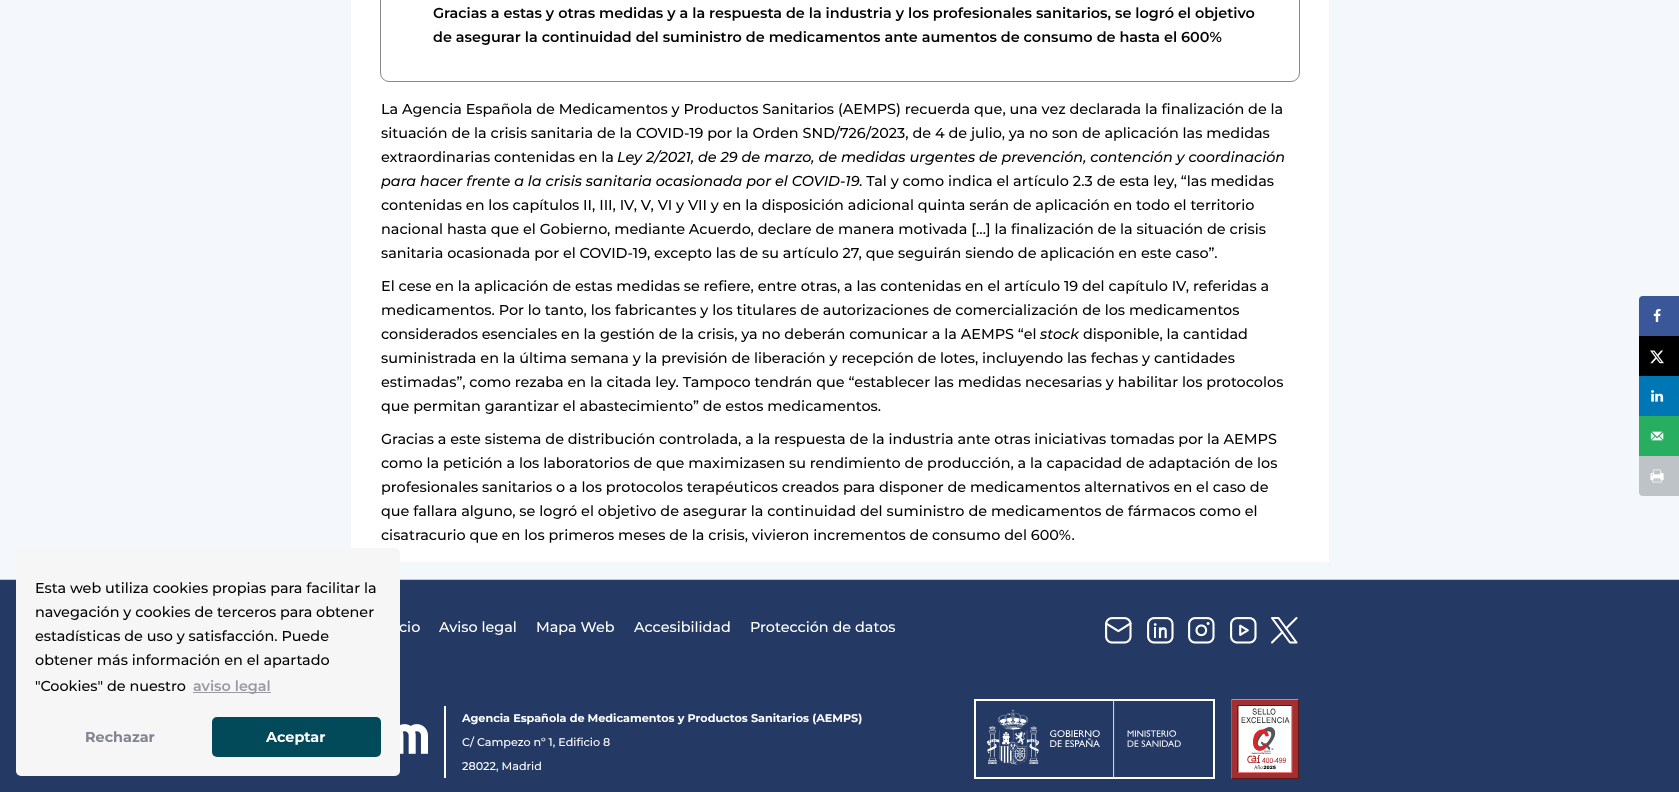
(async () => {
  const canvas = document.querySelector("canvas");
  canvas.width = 1679;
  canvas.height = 792;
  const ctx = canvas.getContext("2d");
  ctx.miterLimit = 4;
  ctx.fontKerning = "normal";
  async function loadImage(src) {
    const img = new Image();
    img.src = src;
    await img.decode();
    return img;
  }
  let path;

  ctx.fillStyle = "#f4f7fc";
  ctx.fillRect(0, 0, 1679, 792);
  ctx.strokeStyle = "#ffffff";
  ctx.lineWidth = 15;
  ctx.strokeRect(358.5, -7.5, 963, 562);
  ctx.fillStyle = "#ffffff";
  ctx.fillRect(366, 0, 948, 547);
  ctx.beginPath();
  ctx.roundRect(380.5, -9.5, 919, 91, 8.5);
  ctx.strokeStyle = "#898989";
  ctx.lineWidth = 1;
  ctx.stroke();
  ctx.fillStyle = "#3a579a";
  ctx.beginPath();
  ctx.roundRect(1640, 297, 38, 38, [3, 0, 0, 0]);
  ctx.fill();
  ctx.strokeStyle = "#3a579a";
  ctx.lineWidth = 2;
  ctx.stroke();
  ctx.drawImage(await loadImage("img/1.png"), 1653, 309, 8, 13);
  ctx.fillStyle = "#000000";
  ctx.fillRect(1639, 336, 40, 40);
  ctx.drawImage(await loadImage("img/2.png"), 1650, 350, 14, 14);
  ctx.fillStyle = "#0077b5";
  ctx.fillRect(1639, 376, 40, 40);
  ctx.drawImage(await loadImage("img/3.png"), 1651, 390, 13, 12);
  ctx.fillStyle = "#27ae60";
  ctx.fillRect(1639, 416, 40, 40);
  ctx.drawImage(await loadImage("img/4.png"), 1650, 431, 14, 10);
  ctx.fillStyle = "#bdc3c7";
  ctx.beginPath();
  ctx.roundRect(1640, 457, 38, 38, [0, 0, 0, 3]);
  ctx.fill();
  ctx.strokeStyle = "#bdc3c7";
  ctx.stroke();
  ctx.drawImage(await loadImage("img/5.png"), 1650, 469, 14, 14);
  ctx.fillStyle = "#243a64";
  ctx.fillRect(0, 580, 1679, 212);
  ctx.fillStyle = "#bec9d6";
  ctx.fillRect(0, 579, 1679, 1);
  ctx.drawImage(await loadImage("img/6.png"), 1105, 617, 27, 27);
  ctx.drawImage(await loadImage("img/7.png"), 1147, 617, 27, 27);
  ctx.drawImage(await loadImage("img/8.png"), 1188, 617, 27, 27);
  ctx.drawImage(await loadImage("img/9.png"), 1230, 617, 27, 27);
  path = new Path2D("M1272 618L1290 642.5H1296.5L1278.5 618ZM1272 642.5L1282.5 632M1286 628.5L1296.5 618");
  ctx.strokeStyle = "#ffffff";
  ctx.lineWidth = 2.1;
  ctx.lineCap = "round";
  ctx.lineJoin = "round";
  ctx.stroke(path);
  ctx.drawImage(await loadImage("img/10.png"), 400, 724, 28, 30);
  ctx.fillStyle = "#ffffff";
  ctx.fillRect(444, 706, 2, 72);
  ctx.lineWidth = 2;
  ctx.lineJoin = "miter";
  ctx.strokeRect(975, 700, 239, 78);
  ctx.drawImage(await loadImage("img/11.png"), 987, 701, 194, 76);
  ctx.drawImage(await loadImage("img/12.png"), 1231, 699, 68, 80);
  ctx.font = "600 14.4px Montserrat";
  ctx.fillStyle = "#000000";
  ctx.fillText("Gracias a estas y otras medidas y a la respuesta de la industria y los profesionales sanitarios, se logró el objetivo", 433, 18);
  ctx.fillText("de asegurar la continuidad del suministro de medicamentos ante aumentos de consumo de hasta el 600%", 433, 42);
  ctx.font = "500 14.4px Montserrat";
  for (const [text, x, y] of [
    ["La Agencia Española de Medicamentos y Productos Sanitarios (AEMPS) recuerda que, una vez declarada la finalización de la", 381, 114],
    ["situación de la crisis sanitaria de la COVID-19 por la Orden SND/726/2023, de 4 de julio, ya no son de aplicación las medidas", 381, 138],
    ["extraordinarias contenidas en la", 381, 162],
  ]) {
    ctx.fillText(text, x, y);
  }
  ctx.font = "italic 500 14.4px Montserrat";
  ctx.fillText("Ley 2/2021, de 29 de marzo, de medidas urgentes de prevención, contención y coordinación", 617, 162);
  ctx.fillText("para hacer frente a la crisis sanitaria ocasionada por el COVID-19", 381, 186);
  ctx.font = "500 14.4px Montserrat";
  for (const [text, x, y] of [
    [". Tal y como indica el artículo 2.3 de esta ley, “las medidas", 859, 186],
    ["contenidas en los capítulos II, III, IV, V, VI y VII y en la disposición adicional quinta serán de aplicación en todo el territorio", 381, 210],
    ["nacional hasta que el Gobierno, mediante Acuerdo, declare de manera motivada […] la finalización de la situación de crisis", 381, 234],
    ["sanitaria ocasionada por el COVID-19, excepto las de su artículo 27, que seguirán siendo de aplicación en este caso”.", 381, 258],
    ["El cese en la aplicación de estas medidas se refiere, entre otras, a las contenidas en el artículo 19 del capítulo IV, referidas a", 381, 291],
    ["medicamentos. Por lo tanto, los fabricantes y los titulares de autorizaciones de comercialización de los medicamentos", 381, 315],
    ["considerados esenciales en la gestión de la crisis, ya no deberán comunicar a la AEMPS “el", 381, 339],
  ]) {
    ctx.fillText(text, x, y);
  }
  ctx.font = "italic 500 14.4px Montserrat";
  ctx.fillText("stock", 1040, 339);
  ctx.font = "500 14.4px Montserrat";
  for (const [text, x, y] of [
    ["disponible, la cantidad", 1083, 339],
    ["suministrada en la última semana y la previsión de liberación y recepción de lotes, incluyendo las fechas y cantidades", 381, 363],
    ["estimadas”, como rezaba en la citada ley. Tampoco tendrán que “establecer las medidas necesarias y habilitar los protocolos", 381, 387],
    ["que permitan garantizar el abastecimiento” de estos medicamentos.", 381, 411],
    ["Gracias a este sistema de distribución controlada, a la respuesta de la industria ante otras iniciativas tomadas por la AEMPS", 381, 444],
    ["como la petición a los laboratorios de que maximizasen su rendimiento de producción, a la capacidad de adaptación de los", 381, 468],
    ["profesionales sanitarios o a los protocolos terapéuticos creados para disponer de medicamentos alternativos en el caso de", 381, 492],
    ["que fallara alguno, se logró el objetivo de asegurar la continuidad del suministro de medicamentos de fármacos como el", 381, 516],
    ["cisatracurio que en los primeros meses de la crisis, vivieron incrementos de consumo del 600%.", 381, 540],
  ]) {
    ctx.fillText(text, x, y);
  }
  ctx.fillStyle = "#ffffff";
  ctx.fillText("cio", 399, 632);
  ctx.fillStyle = "#f6f6f6";
  ctx.beginPath();
  ctx.roundRect(16, 548, 384, 228, 5);
  ctx.fill();
  ctx.fillStyle = "#9a9aa5";
  ctx.fillRect(193, 692, 78, 1);
  ctx.font = "600 14.4px Montserrat";
  ctx.fillText("aviso legal", 193, 691);
  ctx.fillStyle = "#024959";
  ctx.beginPath();
  ctx.roundRect(212, 717, 169, 40, 5);
  ctx.fill();
  ctx.font = "bold 14.4px Montserrat";
  ctx.fillStyle = "#ffffff";
  ctx.fillText("Aceptar", 266, 742);
  ctx.fillStyle = "#838391";
  ctx.fillText("Rechazar", 85, 742);
  ctx.font = "500 14.4px Montserrat";
  ctx.fillStyle = "#000000";
  for (const [text, x, y] of [
    ["\"Cookies\" de nuestro", 35, 691],
    ["obtener más información en el apartado", 35, 665],
    ["estadísticas de uso y satisfacción. Puede", 35, 641],
    ["navegación y cookies de terceros para obtener", 35, 617],
    ["Esta web utiliza cookies propias para facilitar la", 35, 593],
  ]) {
    ctx.fillText(text, x, y);
  }
  ctx.fillStyle = "#ffffff";
  for (const [text, x, y] of [
    ["Aviso legal", 439, 632],
    ["Mapa Web", 536, 632],
    ["Accesibilidad", 634, 632],
    ["Protección de datos", 750, 632],
  ]) {
    ctx.fillText(text, x, y);
  }
  ctx.font = "bold 11.2px Montserrat";
  ctx.fillText("Agencia Española de Medicamentos y Productos Sanitarios (AEMPS)", 462, 722);
  ctx.font = "500 11.2px Montserrat";
  ctx.fillText("C/ Campezo nº 1, Edificio 8", 462, 746);
  ctx.fillText("28022, Madrid", 462, 770);
})();
